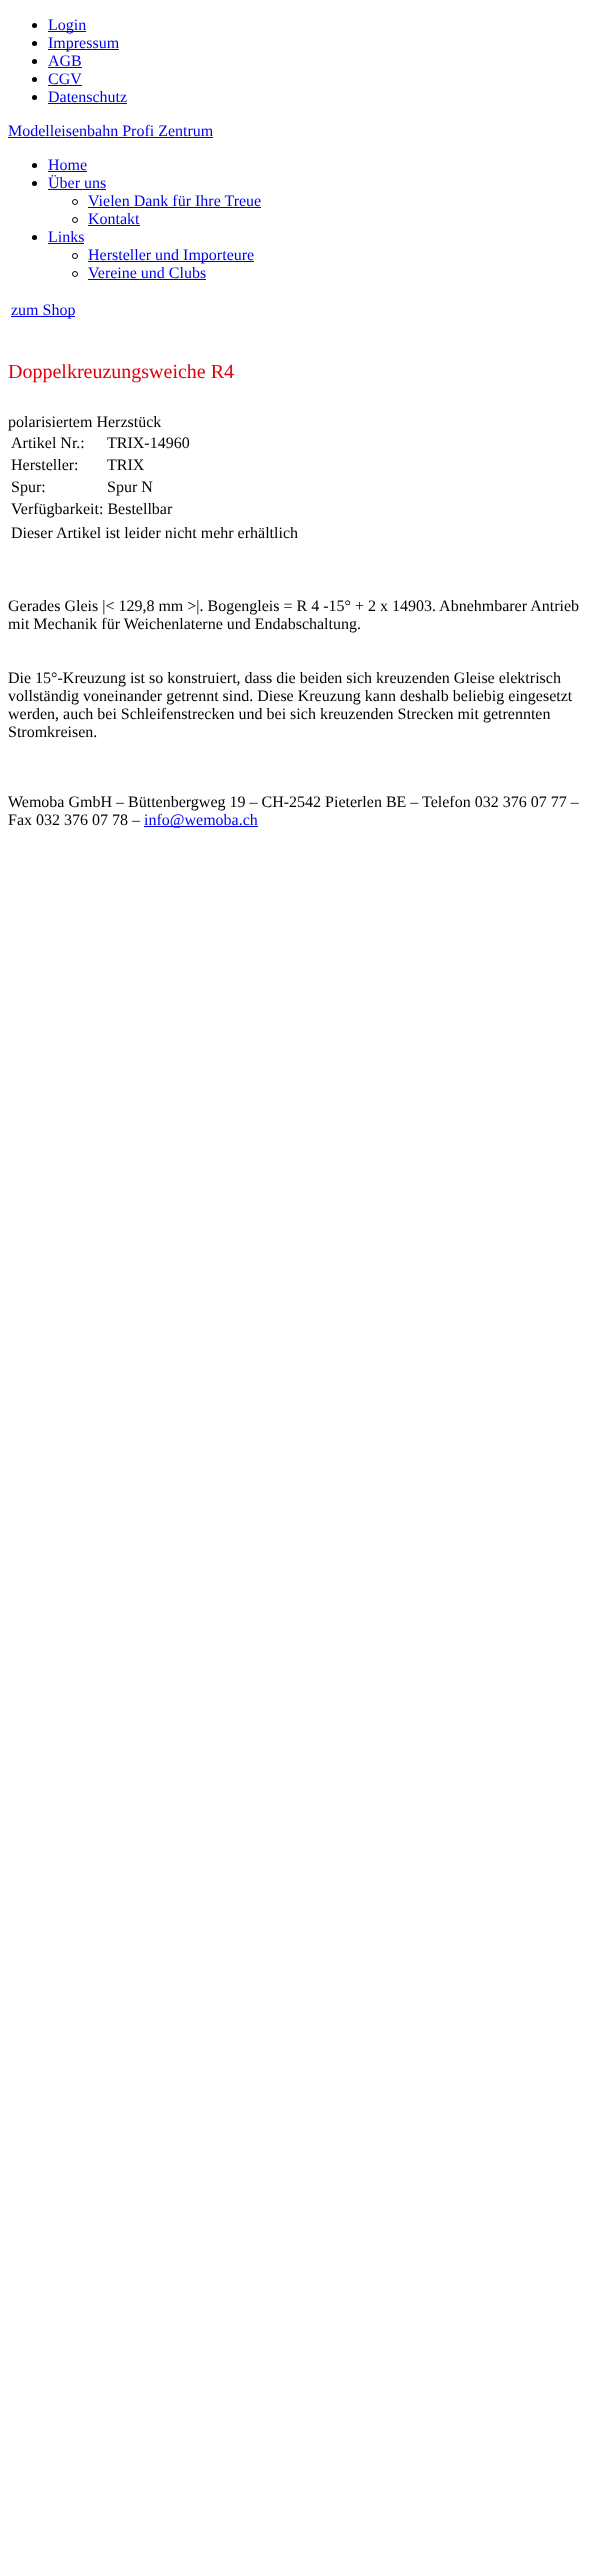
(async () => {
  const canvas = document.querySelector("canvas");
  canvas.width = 610;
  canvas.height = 2564;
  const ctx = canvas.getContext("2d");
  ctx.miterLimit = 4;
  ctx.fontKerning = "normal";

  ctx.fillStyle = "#ffffff";
  ctx.fillRect(0, 0, 610, 2564);
  ctx.fillStyle = "#000000";
  ctx.beginPath();
  ctx.arc(34.5, 25.5, 2.5, 0, Math.PI * 2);
  ctx.fill();
  ctx.fillStyle = "#0000ee";
  ctx.fillRect(48, 31, 38, 1);
  ctx.fillStyle = "#000000";
  ctx.beginPath();
  ctx.arc(34.5, 43.5, 2.5, 0, Math.PI * 2);
  ctx.fill();
  ctx.fillStyle = "#0000ee";
  ctx.fillRect(48, 49, 71, 1);
  ctx.fillStyle = "#000000";
  ctx.beginPath();
  ctx.arc(34.5, 61.5, 2.5, 0, Math.PI * 2);
  ctx.fill();
  ctx.fillStyle = "#0000ee";
  ctx.fillRect(48, 67, 34, 1);
  ctx.fillStyle = "#000000";
  ctx.beginPath();
  ctx.arc(34.5, 79.5, 2.5, 0, Math.PI * 2);
  ctx.fill();
  ctx.fillStyle = "#0000ee";
  ctx.fillRect(48, 85, 34, 1);
  ctx.fillStyle = "#000000";
  ctx.beginPath();
  ctx.arc(34.5, 97.5, 2.5, 0, Math.PI * 2);
  ctx.fill();
  ctx.fillStyle = "#0000ee";
  ctx.fillRect(48, 103, 79, 1);
  ctx.fillRect(8, 137, 205, 1);
  ctx.fillStyle = "#000000";
  ctx.beginPath();
  ctx.arc(34.5, 165.5, 2.5, 0, Math.PI * 2);
  ctx.fill();
  ctx.fillStyle = "#0000ee";
  ctx.fillRect(48, 171, 39, 1);
  ctx.fillStyle = "#000000";
  ctx.beginPath();
  ctx.arc(34.5, 183.5, 2.5, 0, Math.PI * 2);
  ctx.fill();
  ctx.fillStyle = "#0000ee";
  ctx.fillRect(48, 189, 58, 1);
  ctx.beginPath();
  ctx.arc(75, 202, 2.5, 0, Math.PI * 2);
  ctx.strokeStyle = "#000000";
  ctx.stroke();
  ctx.fillRect(88, 207, 173, 1);
  ctx.beginPath();
  ctx.arc(75, 220, 2.5, 0, Math.PI * 2);
  ctx.stroke();
  ctx.fillRect(88, 225, 52, 1);
  ctx.fillStyle = "#000000";
  ctx.beginPath();
  ctx.arc(34.5, 237.5, 2.5, 0, Math.PI * 2);
  ctx.fill();
  ctx.fillStyle = "#0000ee";
  ctx.fillRect(48, 243, 36, 1);
  ctx.beginPath();
  ctx.arc(75, 256, 2.5, 0, Math.PI * 2);
  ctx.stroke();
  ctx.fillRect(88, 261, 166, 1);
  ctx.beginPath();
  ctx.arc(75, 274, 2.5, 0, Math.PI * 2);
  ctx.stroke();
  for (const [x, y, w, h, color] of [
    [88, 279, 118, 1, "#0000ee"],
    [11, 316, 64, 1, "#0000ee"],
    [144, 826, 114, 1, "#0000ee"],
  ]) {
    ctx.fillStyle = color;
    ctx.fillRect(x, y, w, h);
  }
  ctx.font = "16px Liberation Serif";
  for (const [text, x, y] of [
    ["Login", 48, 30],
    ["Impressum", 48, 48],
    ["AGB", 48, 66],
    ["CGV", 48, 84],
    ["Datenschutz", 48, 102],
    ["Modelleisenbahn Profi Zentrum", 8, 136],
    ["Home", 48, 170],
    ["Über uns", 48, 188],
    ["Vielen Dank für Ihre Treue", 88, 206],
    ["Kontakt", 88, 224],
    ["Links", 48, 242],
    ["Hersteller und Importeure", 88, 260],
    ["Vereine und Clubs", 88, 278],
    ["zum Shop", 11, 315],
  ]) {
    ctx.fillText(text, x, y);
  }
  ctx.font = "20px Liberation Serif";
  ctx.fillStyle = "#e1000c";
  ctx.fillText("Doppelkreuzungsweiche R4", 8, 378);
  ctx.font = "16px Liberation Serif";
  ctx.fillStyle = "#000000";
  for (const [text, x, y] of [
    ["polarisiertem Herzstück", 8, 427],
    ["Artikel Nr.:", 11, 448],
    ["TRIX-14960", 107, 448],
    ["Hersteller:", 11, 470],
    ["TRIX", 107, 470],
    ["Spur:", 11, 492],
    ["Spur N", 107, 492],
    ["Verfügbarkeit: Bestellbar", 11, 514],
    ["Dieser Artikel ist leider nicht mehr erhältlich", 11, 538],
    ["Gerades Gleis |< 129,8 mm >|. Bogengleis = R 4 -15° + 2 x 14903. Abnehmbarer Antrieb", 8, 611],
    ["mit Mechanik für Weichenlaterne und Endabschaltung.", 8, 629],
    ["Die 15°-Kreuzung ist so konstruiert, dass die beiden sich kreuzenden Gleise elektrisch", 8, 683],
    ["vollständig voneinander getrennt sind. Diese Kreuzung kann deshalb beliebig eingesetzt", 8, 701],
    ["werden, auch bei Schleifenstrecken und bei sich kreuzenden Strecken mit getrennten", 8, 719],
    ["Stromkreisen.", 8, 737],
    ["Wemoba GmbH – Büttenbergweg 19 – CH-2542 Pieterlen BE – Telefon 032 376 07 77 –", 8, 807],
    ["Fax 032 376 07 78 –", 8, 825],
  ]) {
    ctx.fillText(text, x, y);
  }
  ctx.fillStyle = "#0000ee";
  ctx.fillText("info@wemoba.ch", 144, 825);
})();
